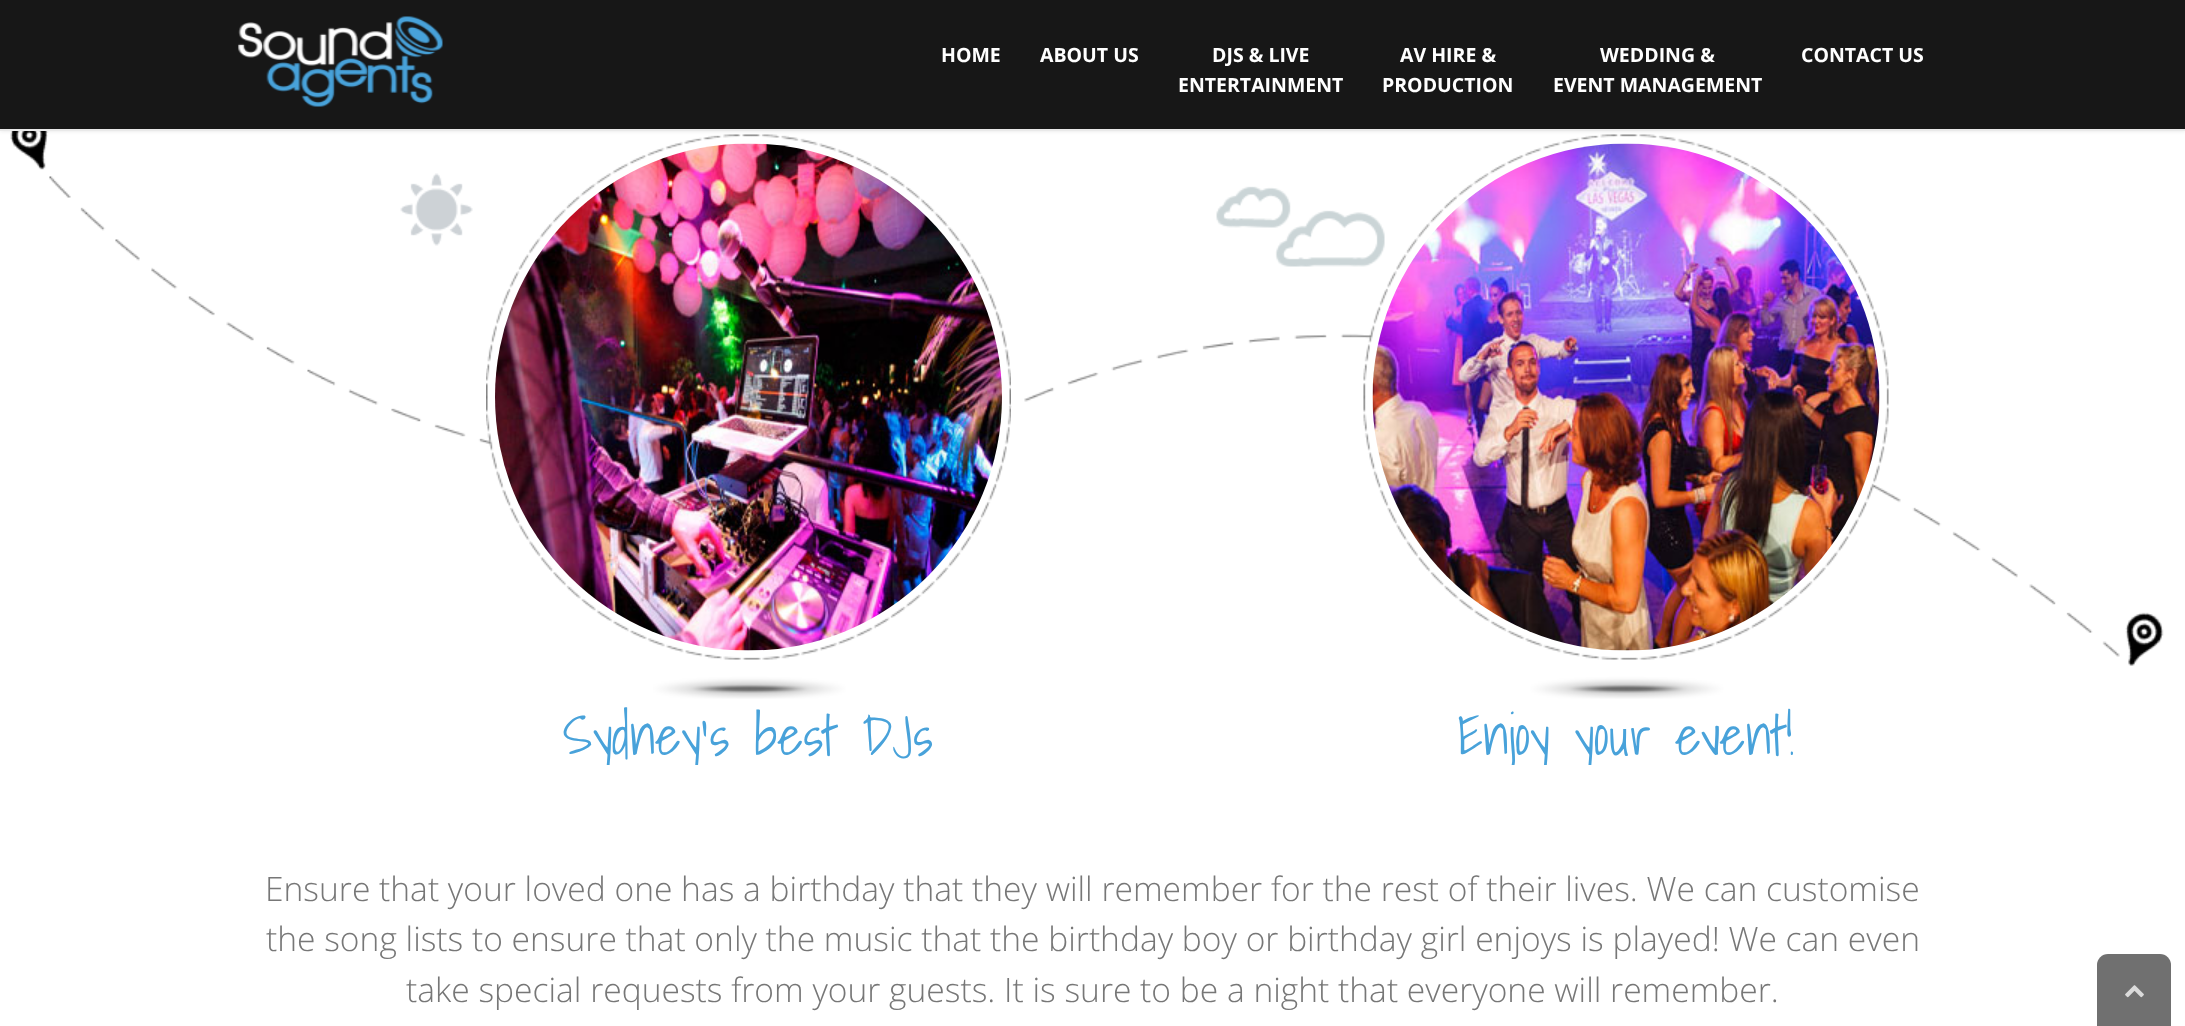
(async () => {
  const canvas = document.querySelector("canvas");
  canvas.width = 2185;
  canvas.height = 1026;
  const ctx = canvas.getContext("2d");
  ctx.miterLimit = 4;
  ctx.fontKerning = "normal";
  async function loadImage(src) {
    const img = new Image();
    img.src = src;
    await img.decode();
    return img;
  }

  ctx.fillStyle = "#ffffff";
  ctx.fillRect(0, 0, 2185, 1026);
  ctx.drawImage(await loadImage("img/2.png"), 10, 131, 2154, 535);
  ctx.drawImage(await loadImage("img/5.png"), 486, 134, 525, 565);
  ctx.drawImage(await loadImage("img/4.png"), 1216, 186, 169, 81);
  ctx.drawImage(await loadImage("img/7.png"), 1363, 134, 526, 565);
  ctx.fillStyle = "rgba(0, 0, 0, 0.1)";
  ctx.filter = "blur(2px)";
  ctx.beginPath();
  ctx.rect(0, -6, 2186, 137);
  ctx.fill();
  ctx.filter = "none";
  ctx.fillStyle = "#171717";
  ctx.fillRect(0, 0, 2185, 129);
  ctx.fillStyle = "#e9e9e9";
  ctx.fillRect(0, 129, 2185, 2);
  ctx.drawImage(await loadImage("img/1.png"), 238, 16, 205, 91);
  ctx.drawImage(await loadImage("img/3.png"), 400, 173, 73, 73);
  ctx.drawImage(await loadImage("img/6.png"), 495, 143, 507, 508);
  ctx.drawImage(await loadImage("img/8.png"), 1372, 143, 508, 508);
  ctx.fillStyle = "#707070";
  ctx.beginPath();
  ctx.roundRect(2097, 954, 74, 72, [11, 11, 0, 0]);
  ctx.fill();
  ctx.drawImage(await loadImage("img/9.png"), 2125, 985, 19, 13);
  ctx.font = "bold 19.5px Open Sans";
  ctx.fillStyle = "#ffffff";
  for (const [text, x, y] of [
    ["HOME", 941, 62],
    ["ABOUT US", 1040, 62],
    ["DJS & LIVE", 1212, 62],
    ["ENTERTAINMENT", 1178, 92],
    ["AV HIRE &", 1400, 62],
    ["PRODUCTION", 1382, 92],
    ["WEDDING &", 1600, 62],
    ["EVENT MANAGEMENT", 1553, 92],
    ["CONTACT US", 1801, 62],
  ]) {
    ctx.fillText(text, x, y);
  }
  ctx.save();
  ctx.beginPath();
  ctx.rect(0, 113, 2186, 652);
  ctx.clip();
  ctx.font = "300 54.5px Shadows Into Light";
  ctx.fillStyle = "#48a2da";
  ctx.fillText("Sydney's best DJs", 563, 755);
  ctx.fillText("Enjoy your event!", 1457, 755);
  ctx.restore();
  ctx.font = "300 33.6px Open Sans";
  ctx.fillStyle = "#777777";
  for (const [text, x, y] of [
    ["Ensure that your loved one has a birthday that they will remember for the rest of their lives. We can customise", 265, 901],
    ["the song lists to ensure that only the music that the birthday boy or birthday girl enjoys is played! We can even", 266, 951],
    ["take special requests from your guests. It is sure to be a night that everyone will remember.", 406, 1002],
  ]) {
    ctx.fillText(text, x, y);
  }
})();
